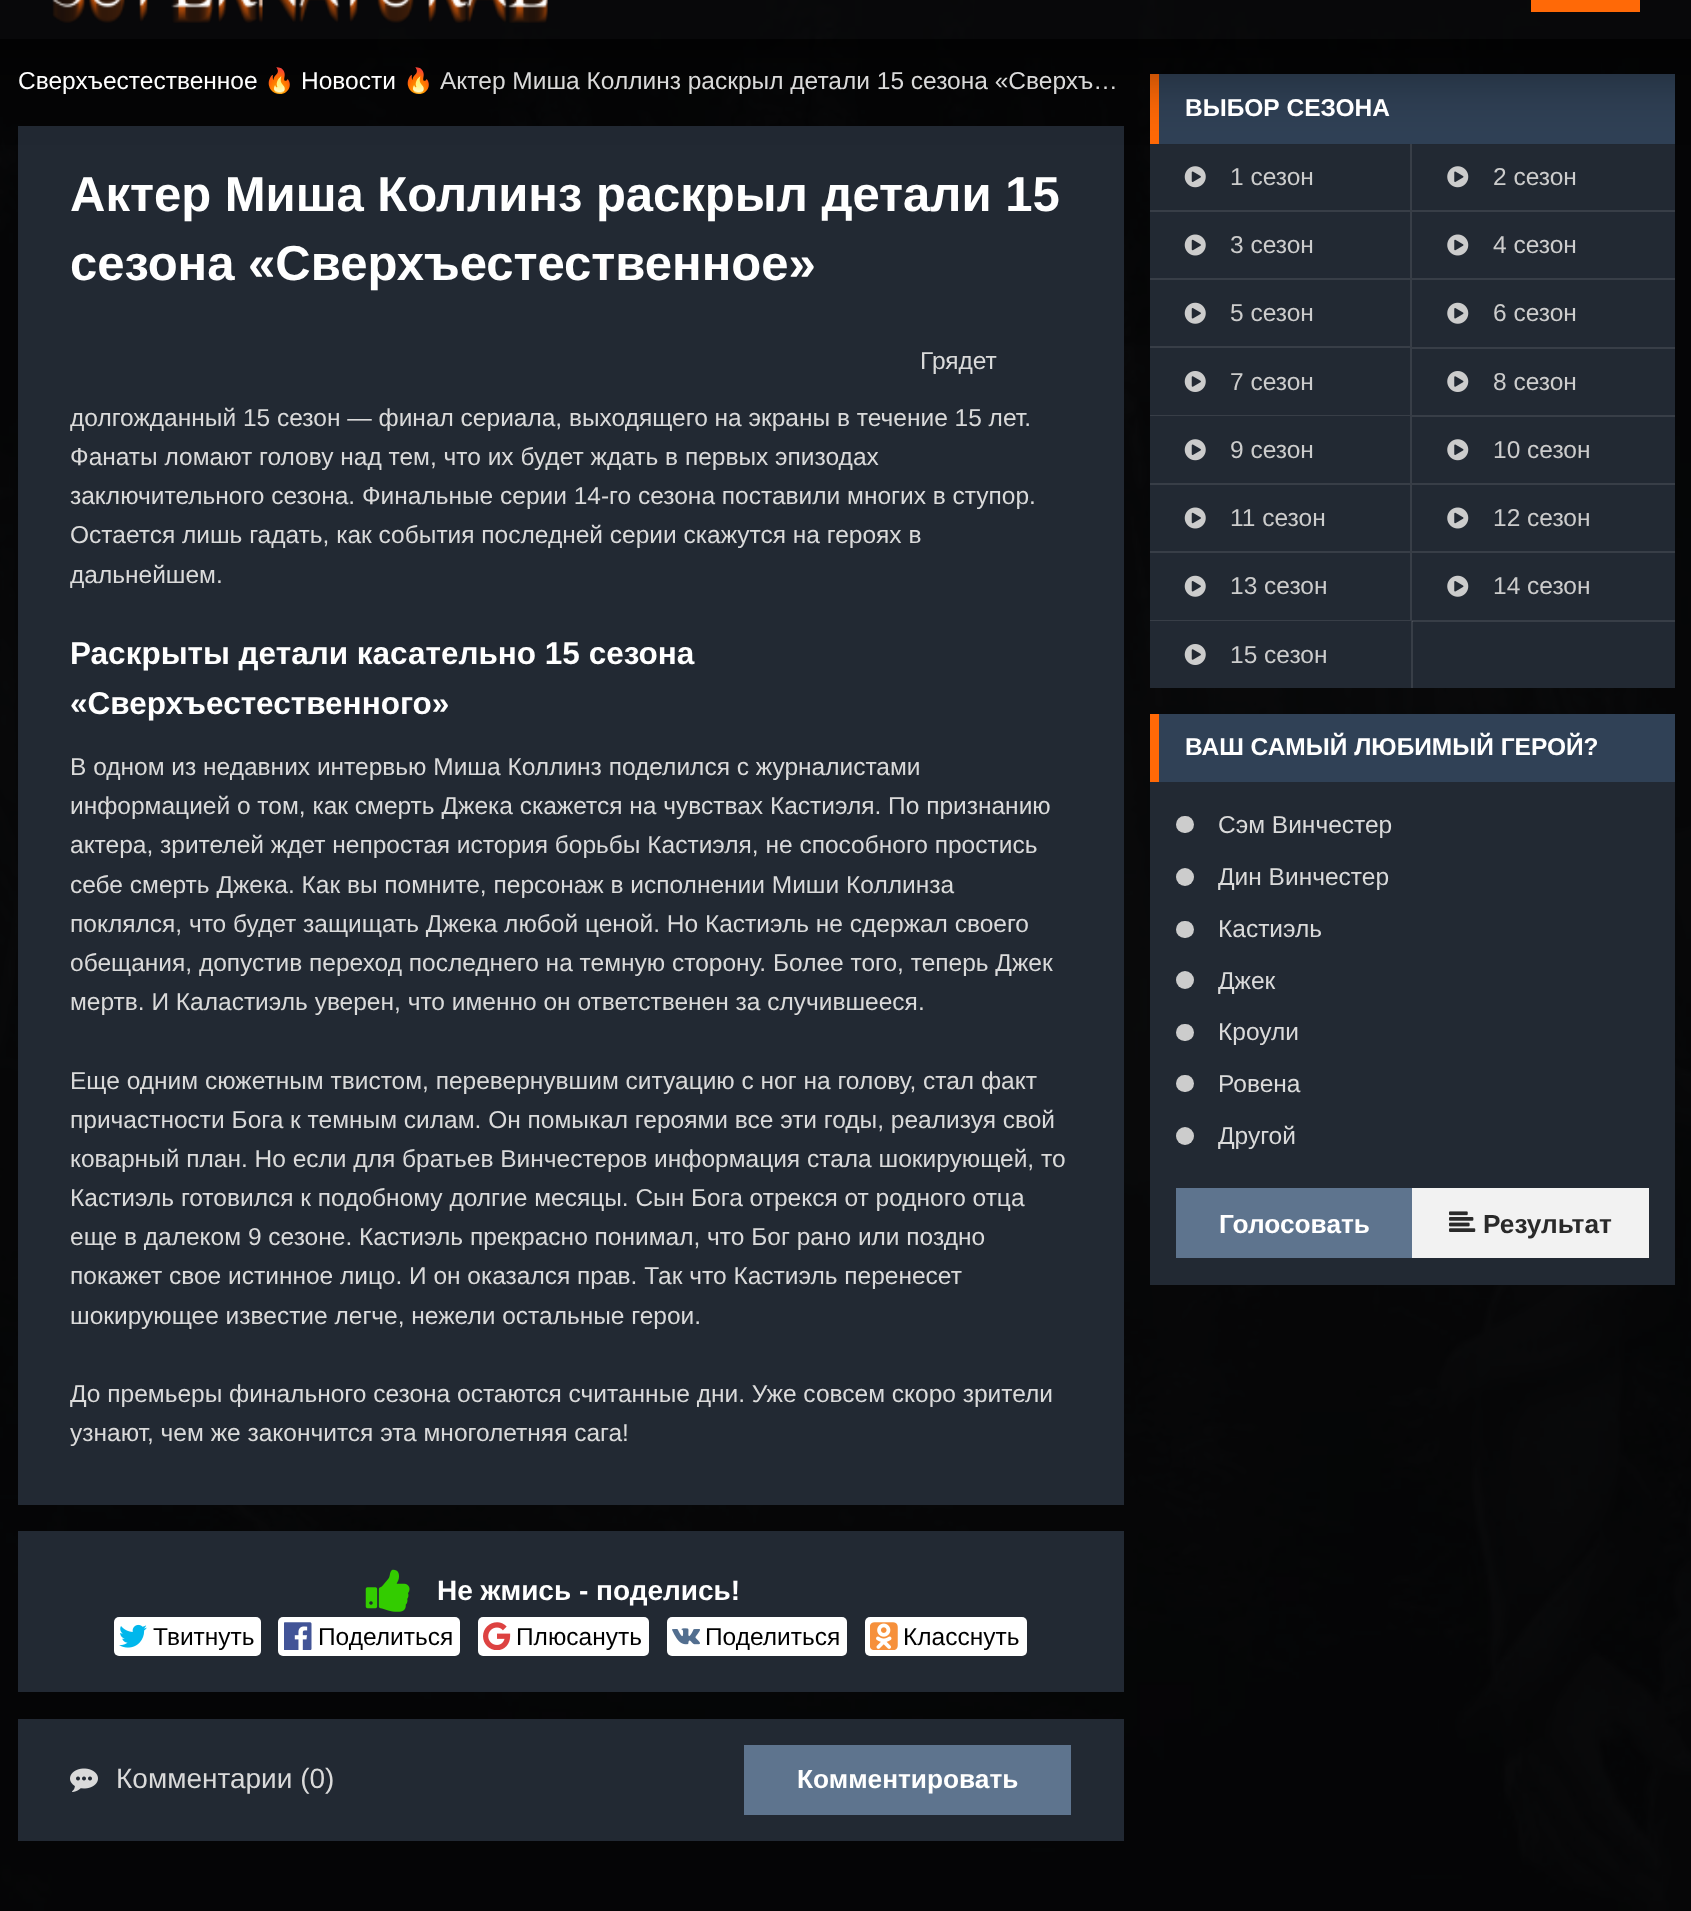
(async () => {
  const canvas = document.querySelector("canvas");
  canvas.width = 1691;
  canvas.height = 1911;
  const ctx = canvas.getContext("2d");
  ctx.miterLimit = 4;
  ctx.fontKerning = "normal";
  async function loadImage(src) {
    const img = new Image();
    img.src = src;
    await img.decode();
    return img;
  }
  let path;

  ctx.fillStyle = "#ffffff";
  ctx.fillRect(0, 0, 1691, 1911);
  ctx.drawImage(await loadImage("img/1.png"), 0, 0, 1691, 1911);
  for (const [x, y, w, h, color] of [
    [18, 126, 1106, 1379, "#222933"],
    [1150, 144, 525, 544, "#222933"],
    [1159, 74, 516, 70, "#304156"],
    [1150, 74, 9, 70, "#ff6907"],
  ]) {
    ctx.fillStyle = color;
    ctx.fillRect(x, y, w, h);
  }
  ctx.fillStyle = "#383e47";
  path = new Path2D("M1412 144V212L1410 210V144Z");
  ctx.fill(path);
  ctx.drawImage(await loadImage("img/10.png"), 1184, 166, 22, 22);
  ctx.drawImage(await loadImage("img/11.png"), 1447, 166, 22, 22);
  ctx.save();
  path = new Path2D("M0 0H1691V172H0ZM-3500-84H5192V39H-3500Z");
  ctx.clip(path, "evenodd");
  ctx.fillStyle = "#000000";
  ctx.filter = "blur(44px)";
  ctx.beginPath();
  ctx.rect(-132, -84, 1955, 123);
  ctx.fill();
  ctx.filter = "none";
  ctx.restore();
  ctx.fillStyle = "rgba(0, 0, 0, 0.68)";
  ctx.fillRect(0, 0, 1691, 39);
  ctx.drawImage(await loadImage("img/2.png"), 52, 0, 496, 23);
  ctx.fillStyle = "#ff6907";
  ctx.fillRect(1531, 0, 109, 12);
  ctx.fillStyle = "#222933";
  ctx.fillRect(18, 1531, 1106, 161);
  ctx.drawImage(await loadImage("img/3.png"), 365, 1569, 45, 43);
  ctx.fillStyle = "#ffffff";
  ctx.beginPath();
  ctx.roundRect(114, 1617, 147, 39, 5);
  ctx.fill();
  ctx.drawImage(await loadImage("img/4.png"), 119, 1624, 28, 24);
  ctx.beginPath();
  ctx.roundRect(278, 1617, 182, 39, 5);
  ctx.fill();
  ctx.drawImage(await loadImage("img/5.png"), 284, 1622, 28, 28);
  ctx.beginPath();
  ctx.roundRect(478, 1617, 171, 39, 5);
  ctx.fill();
  ctx.drawImage(await loadImage("img/6.png"), 483, 1622, 28, 28);
  ctx.beginPath();
  ctx.roundRect(667, 1617, 180, 39, 5);
  ctx.fill();
  ctx.drawImage(await loadImage("img/7.png"), 672, 1628, 28, 17);
  ctx.beginPath();
  ctx.roundRect(865, 1617, 162, 39, 5);
  ctx.fill();
  ctx.drawImage(await loadImage("img/8.png"), 870, 1622, 28, 28);
  ctx.fillStyle = "#222933";
  ctx.fillRect(18, 1719, 1106, 122);
  ctx.drawImage(await loadImage("img/9.png"), 70, 1768, 28, 24);
  ctx.fillStyle = "#5e748e";
  ctx.fillRect(744, 1745, 327, 70);
  ctx.fillStyle = "rgba(255, 255, 255, 0.1)";
  path = new Path2D("M1412 212H1150V210H1410Z");
  ctx.fill(path);
  ctx.fillStyle = "#383e47";
  ctx.fillRect(1412, 210, 263, 2);
  path = new Path2D("M1412 212V280L1410 278V212Z");
  ctx.fill(path);
  ctx.fillStyle = "rgba(255, 255, 255, 0.1)";
  path = new Path2D("M1412 280H1150V278H1410Z");
  ctx.fill(path);
  ctx.drawImage(await loadImage("img/12.png"), 1184, 234, 22, 22);
  ctx.fillStyle = "#383e47";
  ctx.fillRect(1412, 278, 263, 2);
  ctx.drawImage(await loadImage("img/13.png"), 1447, 234, 22, 22);
  path = new Path2D("M1412 280V348L1410 346V280Z");
  ctx.fill(path);
  ctx.fillStyle = "rgba(255, 255, 255, 0.1)";
  path = new Path2D("M1412 348H1150V346H1410Z");
  ctx.fill(path);
  ctx.drawImage(await loadImage("img/14.png"), 1184, 302, 22, 22);
  ctx.fillStyle = "#383e47";
  ctx.fillRect(1412, 347, 263, 2);
  ctx.drawImage(await loadImage("img/15.png"), 1447, 302, 22, 22);
  path = new Path2D("M1412 348V416L1410 415V348Z");
  ctx.fill(path);
  ctx.fillStyle = "rgba(255, 255, 255, 0.1)";
  path = new Path2D("M1412 416H1150V415H1410Z");
  ctx.fill(path);
  ctx.drawImage(await loadImage("img/16.png"), 1184, 371, 22, 21);
  ctx.fillStyle = "#383e47";
  ctx.fillRect(1412, 415, 263, 2);
  ctx.drawImage(await loadImage("img/17.png"), 1447, 371, 22, 21);
  path = new Path2D("M1412 416V485L1410 483V416Z");
  ctx.fill(path);
  ctx.fillStyle = "rgba(255, 255, 255, 0.1)";
  path = new Path2D("M1412 485H1150V483H1410Z");
  ctx.fill(path);
  ctx.drawImage(await loadImage("img/10.png"), 1184, 439, 22, 22);
  ctx.fillStyle = "#383e47";
  ctx.fillRect(1412, 483, 263, 2);
  ctx.drawImage(await loadImage("img/11.png"), 1447, 439, 22, 22);
  path = new Path2D("M1412 485V553L1410 551V485Z");
  ctx.fill(path);
  ctx.fillStyle = "rgba(255, 255, 255, 0.1)";
  path = new Path2D("M1412 553H1150V551H1410Z");
  ctx.fill(path);
  ctx.drawImage(await loadImage("img/12.png"), 1184, 507, 22, 22);
  ctx.fillStyle = "#383e47";
  ctx.fillRect(1412, 551, 263, 2);
  ctx.drawImage(await loadImage("img/13.png"), 1447, 507, 22, 22);
  path = new Path2D("M1412 553V621L1410 620V553Z");
  ctx.fill(path);
  ctx.fillStyle = "rgba(255, 255, 255, 0.1)";
  path = new Path2D("M1412 621H1150V620H1410Z");
  ctx.fill(path);
  ctx.drawImage(await loadImage("img/14.png"), 1184, 575, 22, 22);
  ctx.fillStyle = "#383e47";
  ctx.fillRect(1412, 620, 263, 2);
  ctx.drawImage(await loadImage("img/15.png"), 1447, 575, 22, 22);
  ctx.fillStyle = "rgba(255, 255, 255, 0.1)";
  ctx.fillRect(1411, 621, 2, 67);
  ctx.drawImage(await loadImage("img/16.png"), 1184, 644, 22, 21);
  for (const [x, y, w, h, color] of [
    [1150, 782, 525, 503, "#222933"],
    [1159, 714, 516, 68, "#304156"],
    [1150, 714, 9, 68, "#ff6907"],
  ]) {
    ctx.fillStyle = color;
    ctx.fillRect(x, y, w, h);
  }
  ctx.fillStyle = "#cccccc";
  ctx.beginPath();
  ctx.roundRect(1176, 816, 18, 17, 8.5);
  ctx.fill();
  ctx.beginPath();
  ctx.arc(1185, 877, 9, 0, Math.PI * 2);
  ctx.fill();
  ctx.beginPath();
  ctx.roundRect(1176, 921, 18, 17, 8.5);
  ctx.fill();
  ctx.beginPath();
  ctx.arc(1185, 980, 9, 0, Math.PI * 2);
  ctx.fill();
  ctx.beginPath();
  ctx.roundRect(1176, 1024, 18, 17, 8.5);
  ctx.fill();
  ctx.beginPath();
  ctx.roundRect(1176, 1075, 18, 17, 8.5);
  ctx.fill();
  ctx.beginPath();
  ctx.arc(1185, 1136, 9, 0, Math.PI * 2);
  ctx.fill();
  ctx.fillStyle = "#5e748e";
  ctx.fillRect(1176, 1188, 236, 70);
  ctx.fillStyle = "#f2f2f2";
  ctx.fillRect(1412, 1188, 237, 70);
  ctx.drawImage(await loadImage("img/18.png"), 1449, 1211, 27, 21);
  ctx.font = "24.5px Liberation Sans";
  ctx.fillStyle = "#ffffff";
  ctx.fillText("Сверхъестественное", 18, 89);
  ctx.font = "24.5px Noto Color Emoji";
  ctx.fillStyle = "#dadada";
  ctx.fillText("🔥", 264, 89);
  ctx.font = "24.5px Liberation Sans";
  ctx.fillStyle = "#ffffff";
  ctx.fillText("Новости", 301, 89);
  ctx.font = "24.5px Noto Color Emoji";
  ctx.fillStyle = "#dadada";
  ctx.fillText("🔥", 403, 89);
  ctx.font = "24.5px Liberation Sans";
  ctx.fillText("Актер Миша Коллинз раскрыл детали 15 сезона «Сверхъ…", 440, 89);
  ctx.font = "bold 49px Liberation Sans";
  ctx.fillStyle = "#ffffff";
  ctx.fillText("Актер Миша Коллинз раскрыл детали 15", 70, 211);
  ctx.fillText("сезона «Сверхъестественное»", 70, 280);
  ctx.font = "24.5px Liberation Sans";
  ctx.fillStyle = "#dadada";
  for (const [text, x, y] of [
    ["Грядет", 920, 369],
    ["долгожданный 15 сезон — финал сериала, выходящего на экраны в течение 15 лет.", 70, 426],
    ["Фанаты ломают голову над тем, что их будет ждать в первых эпизодах", 70, 465],
    ["заключительного сезона. Финальные серии 14-го сезона поставили многих в ступор.", 70, 504],
    ["Остается лишь гадать, как события последней серии скажутся на героях в", 70, 543],
    ["дальнейшем.", 70, 583],
  ]) {
    ctx.fillText(text, x, y);
  }
  ctx.font = "bold 31.5px Liberation Sans";
  ctx.fillStyle = "#ffffff";
  ctx.fillText("Раскрыты детали касательно 15 сезона", 70, 664);
  ctx.fillText("«Сверхъестественного»", 70, 714);
  ctx.font = "24.5px Liberation Sans";
  ctx.fillStyle = "#dadada";
  for (const [text, x, y] of [
    ["В одном из недавних интервью Миша Коллинз поделился с журналистами", 70, 775],
    ["информацией о том, как смерть Джека скажется на чувствах Кастиэля. По признанию", 70, 814],
    ["актера, зрителей ждет непростая история борьбы Кастиэля, не способного простись", 70, 853],
    ["себе смерть Джека. Как вы помните, персонаж в исполнении Миши Коллинза", 70, 893],
    ["поклялся, что будет защищать Джека любой ценой. Но Кастиэль не сдержал своего", 70, 932],
    ["обещания, допустив переход последнего на темную сторону. Более того, теперь Джек", 70, 971],
    ["мертв. И Каластиэль уверен, что именно он ответственен за случившееся.", 70, 1010],
    ["Еще одним сюжетным твистом, перевернувшим ситуацию с ног на голову, стал факт", 70, 1089],
    ["причастности Бога к темным силам. Он помыкал героями все эти годы, реализуя свой", 70, 1128],
    ["коварный план. Но если для братьев Винчестеров информация стала шокирующей, то", 70, 1167],
    ["Кастиэль готовился к подобному долгие месяцы. Сын Бога отрекся от родного отца", 70, 1206],
    ["еще в далеком 9 сезоне. Кастиэль прекрасно понимал, что Бог рано или поздно", 70, 1245],
    ["покажет свое истинное лицо. И он оказался прав. Так что Кастиэль перенесет", 70, 1284],
    ["шокирующее известие легче, нежели остальные герои.", 70, 1324],
    ["До премьеры финального сезона остаются считанные дни. Уже совсем скоро зрители", 70, 1402],
    ["узнают, чем же закончится эта многолетняя сага!", 70, 1441],
  ]) {
    ctx.fillText(text, x, y);
  }
  ctx.font = "bold 28px Liberation Sans";
  ctx.fillStyle = "#ffffff";
  ctx.fillText("Не жмись - поделись!", 437, 1600);
  ctx.font = "24.5px Liberation Sans";
  ctx.fillStyle = "#000000";
  for (const [text, x, y] of [
    ["Твитнуть", 153, 1645],
    ["Поделиться", 318, 1645],
    ["Плюсануть", 516, 1645],
    ["Поделиться", 705, 1645],
    ["Класснуть", 903, 1645],
  ]) {
    ctx.fillText(text, x, y);
  }
  ctx.font = "28px Liberation Sans";
  ctx.fillStyle = "#dadada";
  ctx.fillText("Комментарии (0)", 116, 1788);
  ctx.font = "bold 26.25px Liberation Sans";
  ctx.fillStyle = "#ffffff";
  ctx.fillText("Комментировать", 797, 1788);
  ctx.font = "bold 24.5px Liberation Sans";
  ctx.fillText("ВЫБОР СЕЗОНА", 1185, 116);
  ctx.font = "24.5px Liberation Sans";
  ctx.fillStyle = "#cccccc";
  for (const [text, x, y] of [
    ["1 сезон", 1230, 185],
    ["2 сезон", 1493, 185],
    ["3 сезон", 1230, 253],
    ["4 сезон", 1493, 253],
    ["5 сезон", 1230, 321],
    ["6 сезон", 1493, 321],
    ["7 сезон", 1230, 390],
    ["8 сезон", 1493, 390],
    ["9 сезон", 1230, 458],
    ["10 сезон", 1493, 458],
    ["11 сезон", 1230, 526],
    ["12 сезон", 1493, 526],
    ["13 сезон", 1230, 594],
    ["14 сезон", 1493, 594],
    ["15 сезон", 1230, 663],
  ]) {
    ctx.fillText(text, x, y);
  }
  ctx.font = "bold 24.5px Liberation Sans";
  ctx.fillStyle = "#ffffff";
  ctx.fillText("ВАШ САМЫЙ ЛЮБИМЫЙ ГЕРОЙ?", 1185, 755);
  ctx.font = "24.5px Liberation Sans";
  ctx.fillStyle = "#dadada";
  for (const [text, x, y] of [
    ["Сэм Винчестер", 1218, 833],
    ["Дин Винчестер", 1218, 885],
    ["Кастиэль", 1218, 937],
    ["Джек", 1218, 989],
    ["Кроули", 1218, 1040],
    ["Ровена", 1218, 1092],
    ["Другой", 1218, 1144],
  ]) {
    ctx.fillText(text, x, y);
  }
  ctx.font = "bold 26.25px Liberation Sans";
  ctx.fillStyle = "#ffffff";
  ctx.fillText("Голосовать", 1219, 1233);
  ctx.fillStyle = "#2a2a2a";
  ctx.fillText("Результат", 1483, 1233);
})();
